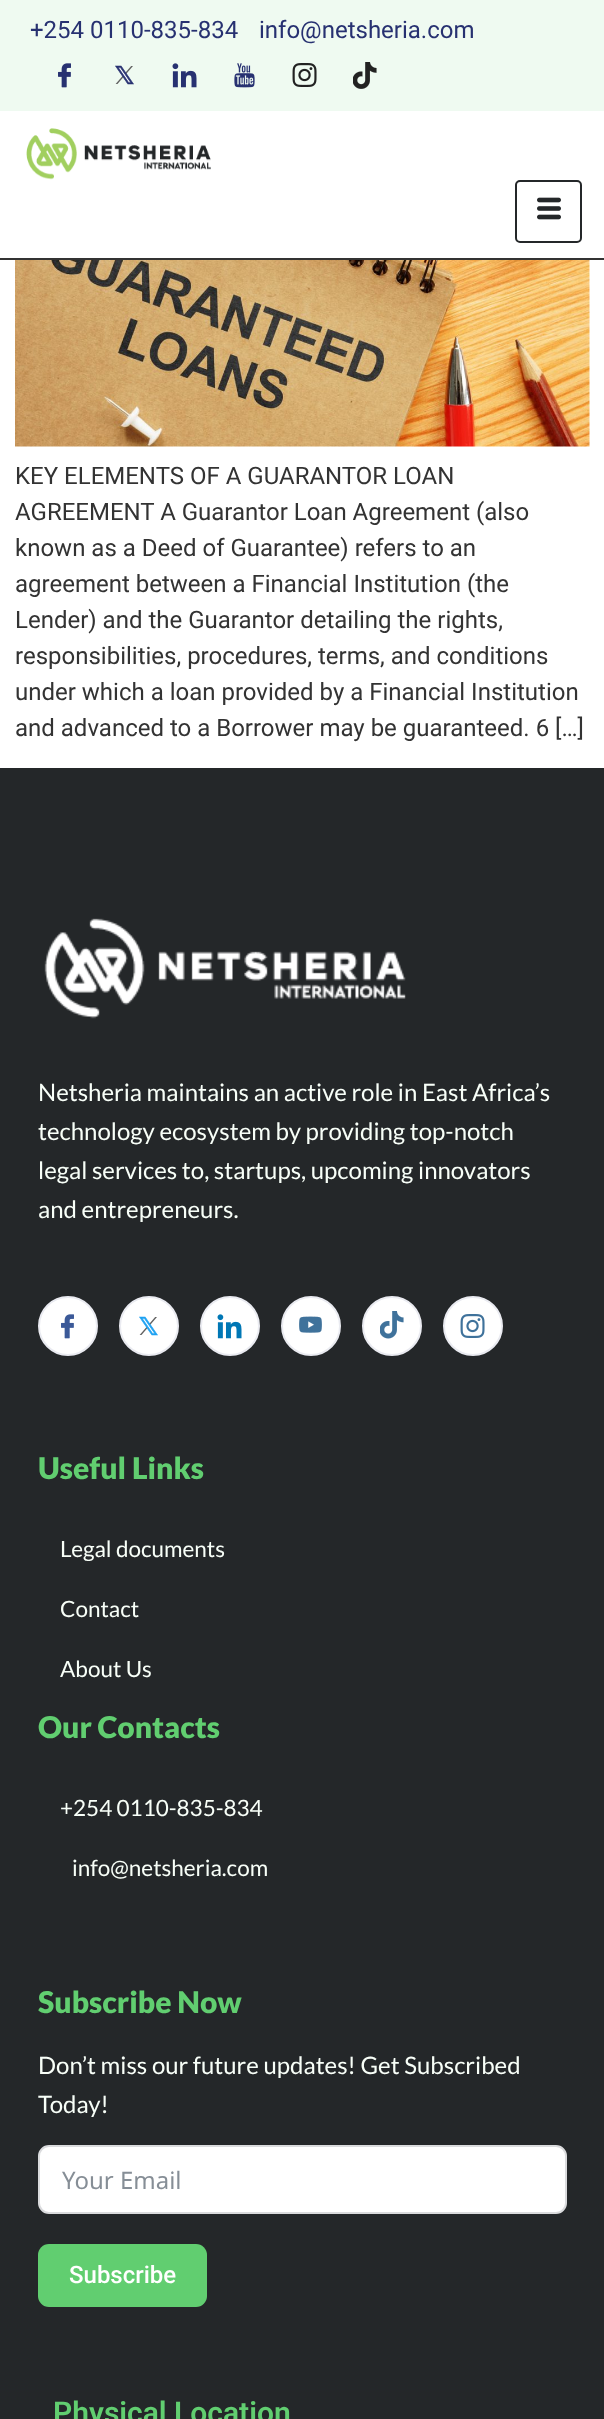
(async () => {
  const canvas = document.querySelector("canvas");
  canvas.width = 604;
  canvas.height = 2419;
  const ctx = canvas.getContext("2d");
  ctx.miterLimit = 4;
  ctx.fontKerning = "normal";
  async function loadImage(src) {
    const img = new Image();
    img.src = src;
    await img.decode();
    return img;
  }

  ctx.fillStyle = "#ffffff";
  ctx.fillRect(0, 0, 604, 2419);
  ctx.fillStyle = "#effaf1";
  ctx.fillRect(0, 0, 604, 111);
  ctx.drawImage(await loadImage("img/1.png"), 58, 63, 13, 25);
  ctx.drawImage(await loadImage("img/2.png"), 115, 65, 19, 20);
  ctx.drawImage(await loadImage("img/3.png"), 172, 63, 25, 25);
  ctx.drawImage(await loadImage("img/4.png"), 234, 63, 21, 25);
  ctx.drawImage(await loadImage("img/5.png"), 292, 63, 25, 24);
  ctx.drawImage(await loadImage("img/6.png"), 353, 62, 24, 27);
  ctx.fillStyle = "#333333";
  ctx.fillRect(0, 258, 604, 2);
  ctx.drawImage(await loadImage("img/7.png"), 26, 128, 185, 52);
  ctx.beginPath();
  ctx.roundRect(516, 181, 65, 61, 4);
  ctx.strokeStyle = "#242729";
  ctx.lineWidth = 2;
  ctx.stroke();
  ctx.drawImage(await loadImage("img/8.png"), 537, 197, 24, 23);
  ctx.drawImage(await loadImage("img/9.png"), 15, 260, 575, 187);
  ctx.fillStyle = "#242729";
  ctx.fillRect(0, 768, 604, 1651);
  ctx.drawImage(await loadImage("img/10.png"), 44, 918, 362, 101);
  ctx.fillStyle = "#ffffff";
  ctx.beginPath();
  ctx.arc(68, 1326, 29, 0, Math.PI * 2);
  ctx.fill();
  ctx.strokeStyle = "#eaebf1";
  ctx.stroke();
  ctx.drawImage(await loadImage("img/11.png"), 61, 1314, 13, 25);
  ctx.beginPath();
  ctx.arc(149, 1326, 29, 0, Math.PI * 2);
  ctx.fill();
  ctx.stroke();
  ctx.drawImage(await loadImage("img/12.png"), 139, 1316, 19, 20);
  ctx.beginPath();
  ctx.arc(230, 1326, 29, 0, Math.PI * 2);
  ctx.fill();
  ctx.stroke();
  ctx.drawImage(await loadImage("img/13.png"), 217, 1314, 25, 25);
  ctx.beginPath();
  ctx.arc(311, 1326, 29, 0, Math.PI * 2);
  ctx.fill();
  ctx.stroke();
  ctx.drawImage(await loadImage("img/14.png"), 299, 1316, 23, 17);
  ctx.beginPath();
  ctx.arc(392, 1326, 29, 0, Math.PI * 2);
  ctx.fill();
  ctx.stroke();
  ctx.drawImage(await loadImage("img/15.png"), 380, 1311, 24, 28);
  ctx.beginPath();
  ctx.arc(473, 1326, 29, 0, Math.PI * 2);
  ctx.fill();
  ctx.stroke();
  ctx.drawImage(await loadImage("img/16.png"), 460, 1314, 25, 24);
  ctx.beginPath();
  ctx.roundRect(39, 2146, 527, 67, 10);
  ctx.fill();
  ctx.strokeStyle = "#dadbdd";
  ctx.stroke();
  ctx.fillStyle = "#61ce70";
  ctx.beginPath();
  ctx.roundRect(38, 2244, 169, 63, 11);
  ctx.fill();
  ctx.font = "24px Roboto";
  ctx.fillStyle = "#273171";
  ctx.fillText("+254 0110-835-834", 30, 38);
  ctx.fillText("info@netsheria.com", 259, 38);
  ctx.fillStyle = "#333333";
  for (const [text, x, y] of [
    ["KEY ELEMENTS OF A GUARANTOR LOAN", 15, 484],
    ["AGREEMENT A Guarantor Loan Agreement (also", 15, 520],
    ["known as a Deed of Guarantee) refers to an", 15, 556],
    ["agreement between a Financial Institution (the", 15, 592],
    ["Lender) and the Guarantor detailing the rights,", 15, 628],
    ["responsibilities, procedures, terms, and conditions", 15, 664],
    ["under which a loan provided by a Financial Institution", 15, 700],
    ["and advanced to a Borrower may be guaranteed. 6 […]", 15, 736],
  ]) {
    ctx.fillText(text, x, y);
  }
  ctx.font = "24px Lato";
  ctx.fillStyle = "#f8fff8";
  for (const [text, x, y] of [
    ["Netsheria maintains an active role in East Africa’s", 38, 1101],
    ["technology ecosystem by providing top-notch", 38, 1140],
    ["legal services to, startups, upcoming innovators", 38, 1179],
    ["and entrepreneurs.", 38, 1218],
  ]) {
    ctx.fillText(text, x, y);
  }
  ctx.font = "900 30px Lato";
  ctx.fillStyle = "#61ce70";
  ctx.fillText("Useful Links", 38, 1479);
  ctx.font = "22.5px Lato";
  ctx.fillStyle = "#f8fff8";
  for (const [text, x, y] of [
    ["Legal documents", 60, 1557],
    ["Contact", 60, 1617],
    ["About Us", 60, 1677],
  ]) {
    ctx.fillText(text, x, y);
  }
  ctx.font = "900 30px Lato";
  ctx.fillStyle = "#61ce70";
  ctx.fillText("Our Contacts", 38, 1738);
  ctx.font = "22.5px Lato";
  ctx.fillStyle = "#f8fff8";
  ctx.fillText("+254 0110-835-834", 60, 1816);
  ctx.fillText("info@netsheria.com", 72, 1876);
  ctx.font = "900 30px Lato";
  ctx.fillStyle = "#61ce70";
  ctx.fillText("Subscribe Now", 38, 2013);
  ctx.font = "24px Lato";
  ctx.fillStyle = "#f8fff8";
  ctx.fillText("Don’t miss our future updates! Get Subscribed", 38, 2074);
  ctx.fillText("Today!", 38, 2113);
  ctx.font = "24px Noto Sans";
  ctx.fillStyle = "#868e96";
  ctx.fillText("Your Email", 62, 2189);
  ctx.font = "500 24px Roboto";
  ctx.fillStyle = "#ffffff";
  ctx.fillText("Subscribe", 69, 2283);
  ctx.font = "600 30px Roboto";
  ctx.fillStyle = "#61ce70";
  ctx.fillText("Physical Location", 53, 2423);
})();
